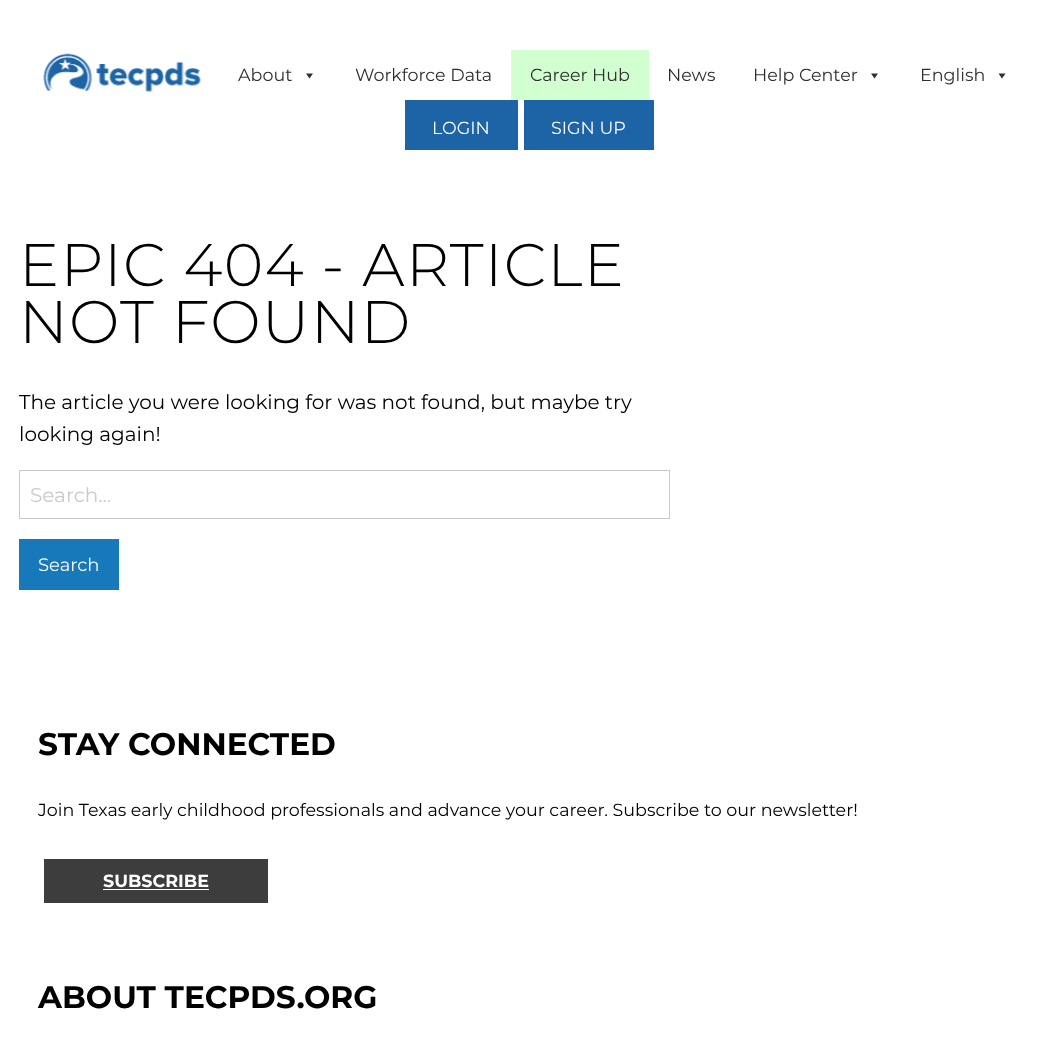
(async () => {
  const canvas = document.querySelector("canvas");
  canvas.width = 1052;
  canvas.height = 1037;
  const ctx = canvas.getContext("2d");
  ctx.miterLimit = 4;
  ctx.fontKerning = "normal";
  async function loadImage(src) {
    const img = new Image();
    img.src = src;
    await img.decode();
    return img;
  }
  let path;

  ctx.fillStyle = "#ffffff";
  ctx.fillRect(0, 0, 1052, 1037);
  ctx.drawImage(await loadImage("img/1.png"), 43, 53, 158, 39);
  ctx.fillStyle = "#2f2f2f";
  path = new Path2D("M313 73.5L309.5 78.5L306 73.5Z");
  ctx.fill(path);
  ctx.fillStyle = "#d2ffd0";
  ctx.fillRect(511, 50, 138, 50);
  ctx.fillStyle = "#2f2f2f";
  path = new Path2D("M878 73.5L874.5 78.5L871 73.5Z");
  ctx.fill(path);
  path = new Path2D("M1005.5 73.5L1002 78.5L998.5 73.5Z");
  ctx.fill(path);
  ctx.fillStyle = "#1d64a6";
  ctx.fillRect(405, 100, 113, 50);
  ctx.fillRect(524, 100, 130, 50);
  ctx.strokeStyle = "#cacaca";
  ctx.strokeRect(19.5, 470.5, 650, 48);
  for (const [x, y, w, h, color] of [
    [19, 539, 100, 51, "#1779ba"],
    [44, 859, 224, 44, "#3d3d3d"],
    [103, 889, 106, 1, "#ffffff"],
  ]) {
    ctx.fillStyle = color;
    ctx.fillRect(x, y, w, h);
  }
  ctx.font = "17.5px Montserrat";
  ctx.fillStyle = "#2f2f2f";
  for (const [text, x, y] of [
    ["About", 238, 81],
    ["Workforce Data", 355, 81],
    ["Career Hub", 530, 81],
    ["News", 667, 81],
    ["Help Center", 753, 81],
    ["English", 920, 81],
  ]) {
    ctx.fillText(text, x, y);
  }
  ctx.fillStyle = "#fefefe";
  ctx.fillText("LOGIN", 432, 134);
  ctx.fillText("SIGN UP", 551, 134);
  ctx.letterSpacing = "1.25px";
  ctx.font = "300 60px Montserrat";
  ctx.fillStyle = "#000000";
  ctx.fillText("EPIC 404 - ARTICLE", 19, 286);
  ctx.fillText("NOT FOUND", 19, 343);
  ctx.letterSpacing = "0px";
  ctx.font = "20px Montserrat";
  ctx.fillText("The article you were looking for was not found, but maybe try", 19, 409);
  ctx.fillText("looking again!", 19, 441);
  ctx.fillStyle = "#cacaca";
  ctx.fillText("Search...", 30, 502);
  ctx.font = "18px Montserrat";
  ctx.fillStyle = "#fefefe";
  ctx.fillText("Search", 38, 571);
  ctx.font = "bold 31.25px Montserrat";
  ctx.fillStyle = "#000000";
  ctx.fillText("STAY CONNECTED", 38, 755);
  ctx.font = "17.5px Montserrat";
  ctx.fillText("Join Texas early childhood professionals and advance your career. Subscribe to our newsletter!", 38, 816);
  ctx.font = "bold 17.5px Montserrat";
  ctx.fillStyle = "#fefefe";
  ctx.fillText("SUBSCRIBE", 103, 887);
  ctx.font = "bold 31.25px Montserrat";
  ctx.fillStyle = "#000000";
  ctx.fillText("ABOUT TECPDS.ORG", 38, 1008);
})();
